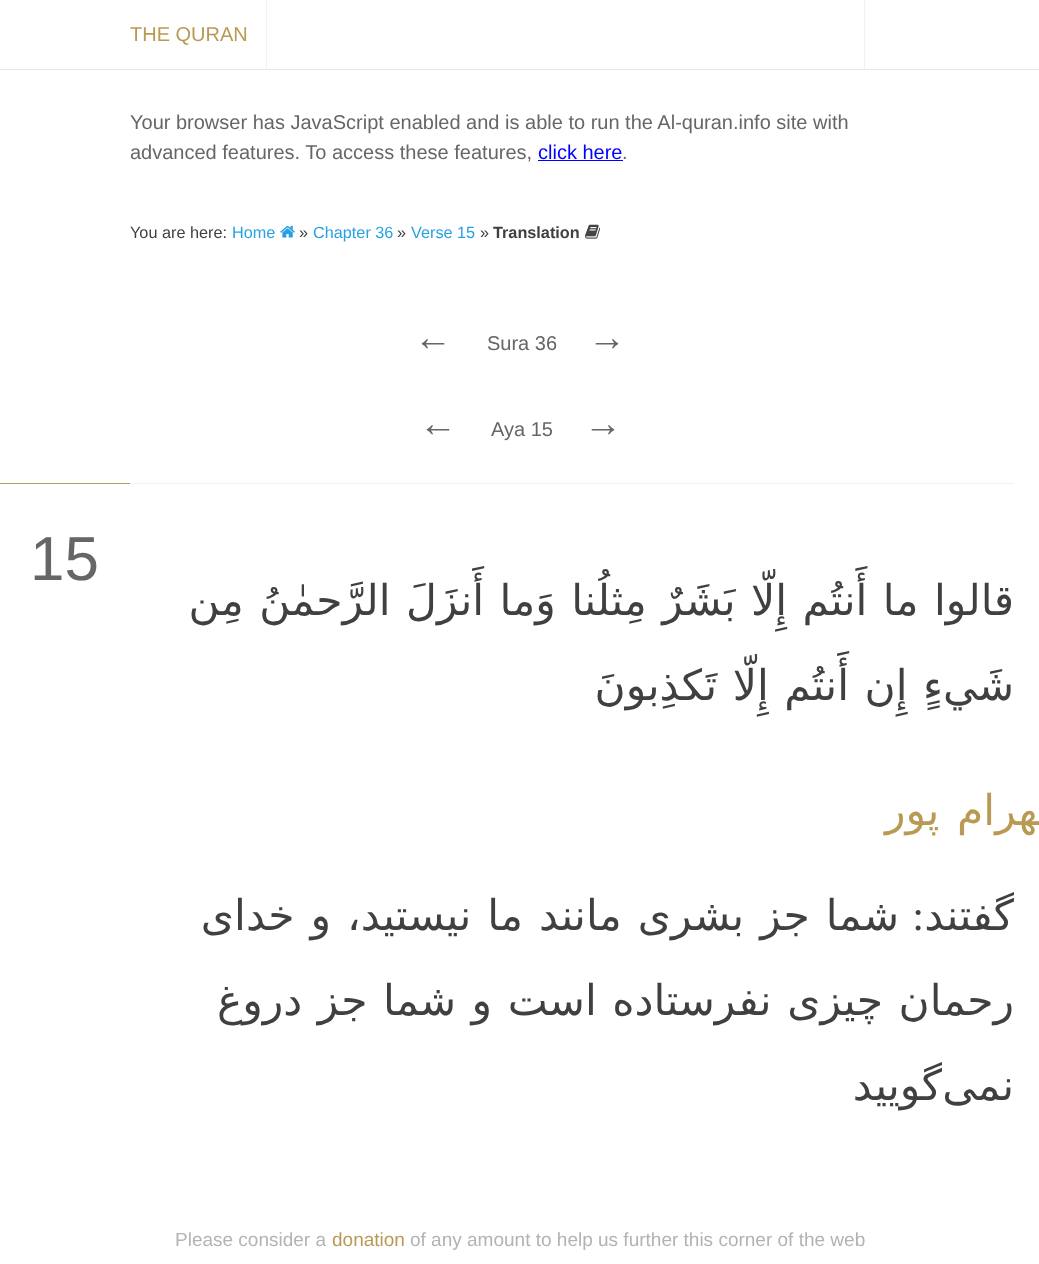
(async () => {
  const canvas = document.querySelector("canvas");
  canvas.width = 1039;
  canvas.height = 1264;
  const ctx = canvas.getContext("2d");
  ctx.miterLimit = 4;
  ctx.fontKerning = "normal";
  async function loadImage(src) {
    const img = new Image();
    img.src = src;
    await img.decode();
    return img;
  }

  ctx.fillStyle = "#ffffff";
  ctx.fillRect(0, 0, 1039, 1264);
  for (const [x, y, w, h, color] of [
    [0, 69, 1039, 1, "#e6e6e6"],
    [266, 0, 1, 69, "#f2f2f2"],
    [864, 0, 1, 69, "#f2f2f2"],
    [538, 160, 85, 1, "#0000ff"],
  ]) {
    ctx.fillStyle = color;
    ctx.fillRect(x, y, w, h);
  }
  ctx.drawImage(await loadImage("img/1.png"), 280, 225, 15, 13);
  ctx.drawImage(await loadImage("img/2.png"), 585, 224, 16, 15);
  ctx.fillStyle = "#b99a54";
  ctx.fillRect(0, 483, 130, 1);
  ctx.fillStyle = "#f2f2f2";
  ctx.fillRect(130, 483, 884, 1);
  ctx.font = "20px Liberation Sans";
  ctx.fillStyle = "#b99a54";
  ctx.fillText("THE QURAN", 130, 41);
  ctx.fillStyle = "#666666";
  ctx.fillText("Your browser has JavaScript enabled and is able to run the Al-quran.info site with", 130, 129);
  ctx.fillText("advanced features. To access these features,", 130, 159);
  ctx.fillStyle = "#0000ff";
  ctx.fillText("click here", 538, 159);
  ctx.fillStyle = "#666666";
  ctx.fillText(".", 622, 159);
  ctx.font = "16.25px Liberation Sans";
  ctx.fillStyle = "#404040";
  ctx.fillText("You are here:", 130, 238);
  ctx.fillStyle = "#28a1e2";
  ctx.fillText("Home", 232, 238);
  ctx.fillStyle = "#404040";
  ctx.fillText("»", 299, 238);
  ctx.fillStyle = "#28a1e2";
  ctx.fillText("Chapter 36", 313, 238);
  ctx.fillStyle = "#404040";
  ctx.fillText("»", 397, 238);
  ctx.fillStyle = "#28a1e2";
  ctx.fillText("Verse 15", 411, 238);
  ctx.fillStyle = "#404040";
  ctx.fillText("»", 480, 238);
  ctx.font = "bold 16.25px Liberation Sans";
  ctx.fillText("Translation", 493, 238);
  ctx.font = "38px Liberation Sans";
  ctx.fillStyle = "#666666";
  ctx.fillText("←", 414, 350);
  ctx.font = "20px Liberation Sans";
  ctx.fillText("Sura 36", 487, 350);
  ctx.font = "38px Liberation Sans";
  ctx.fillText("→", 588, 350);
  ctx.fillText("←", 419, 436);
  ctx.font = "20px Liberation Sans";
  ctx.fillText("Aya 15", 491, 436);
  ctx.font = "38px Liberation Sans";
  ctx.fillText("→", 584, 436);
  ctx.font = "62px Liberation Sans";
  ctx.fillText("15", 30, 580);
  ctx.wordSpacing = "2px";
  ctx.direction = "rtl";
  ctx.font = "42.5px DejaVu Sans";
  ctx.fillStyle = "#404040";
  ctx.fillText("قالوا ما أَنتُم إِلّا بَشَرٌ مِثلُنا وَما أَنزَلَ الرَّحمٰنُ مِن", 1014, 615);
  ctx.fillText("شَيءٍ إِن أَنتُم إِلّا تَكذِبونَ", 1014, 700);
  ctx.letterSpacing = "4.25px";
  ctx.wordSpacing = "0px";
  ctx.fillStyle = "#b99a54";
  ctx.fillText("بهرام پور", 1050, 825);
  ctx.letterSpacing = "0px";
  ctx.wordSpacing = "2.5px";
  ctx.fillStyle = "#404040";
  ctx.fillText("شما جز بشرى مانند ما نيستيد، و خداى", 899, 930);
  ctx.wordSpacing = "0px";
  ctx.font = "42.5px Liberation Serif";
  ctx.fillText(":", 924, 930);
  ctx.font = "42.5px DejaVu Sans";
  ctx.fillText("گفتند", 1014, 930);
  ctx.wordSpacing = "2px";
  ctx.fillText("رحمان چيزى نفرستاده است و شما جز دروغ", 1014, 1015);
  ctx.wordSpacing = "0px";
  ctx.fillText("گوييد", 942, 1100);
  ctx.fillText("نمى", 1014, 1100);
  ctx.direction = "ltr";
  ctx.font = "19px Liberation Sans";
  ctx.fillStyle = "#b3b3b3";
  ctx.fillText("Please consider a", 175, 1246);
  ctx.fillStyle = "#b99a54";
  ctx.fillText("donation", 332, 1246);
  ctx.fillStyle = "#b3b3b3";
  ctx.fillText("of any amount to help us further this corner of the web", 410, 1246);
})();
